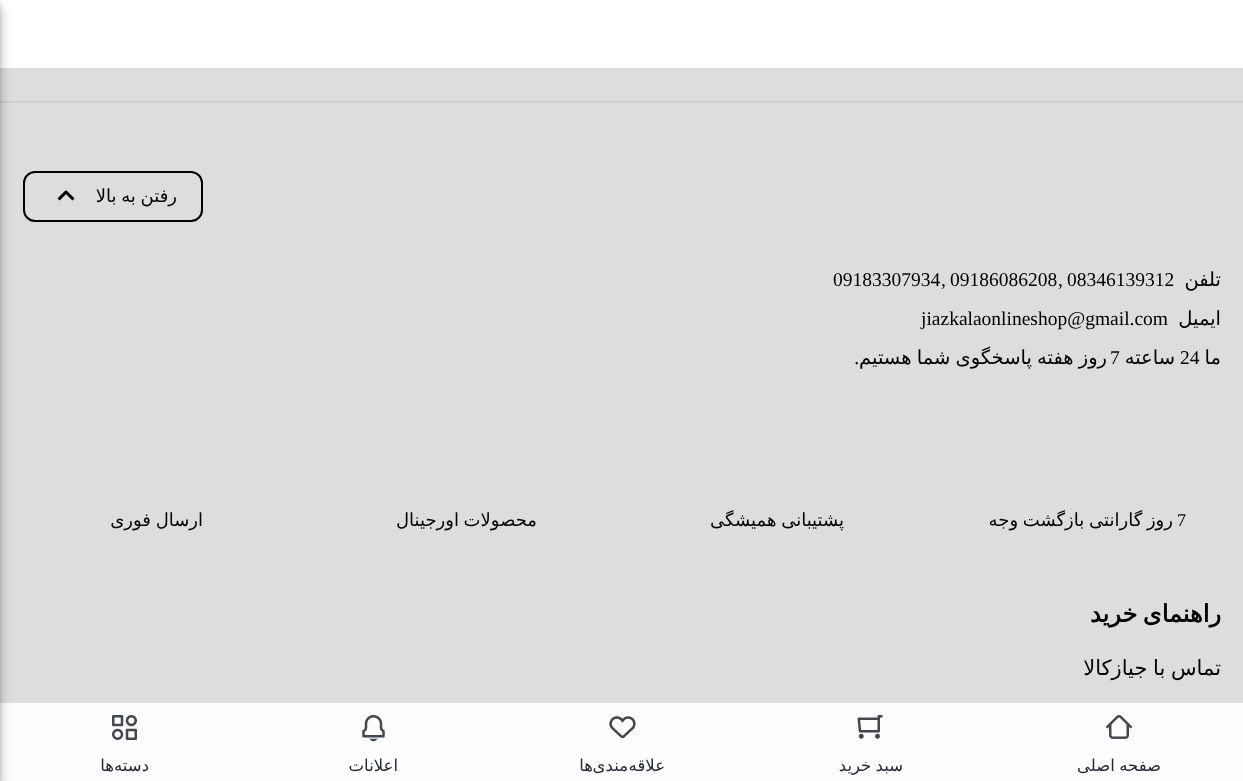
(async () => {
  const canvas = document.querySelector("canvas");
  canvas.width = 1243;
  canvas.height = 781;
  const ctx = canvas.getContext("2d");
  ctx.miterLimit = 4;
  ctx.fontKerning = "normal";
  async function loadImage(src) {
    const img = new Image();
    img.src = src;
    await img.decode();
    return img;
  }

  ctx.fillStyle = "#dddddd";
  ctx.fillRect(0, 0, 1243, 781);
  for (const [x, y, w, h, color] of [
    [0, 703, 1243, 78, "#fdfdfd"],
    [0, 0, 1243, 68, "#ffffff"],
    [0, 101, 1243, 2, "#cecece"],
  ]) {
    ctx.fillStyle = color;
    ctx.fillRect(x, y, w, h);
  }
  ctx.beginPath();
  ctx.roundRect(24, 172, 178, 49, 11);
  ctx.strokeStyle = "#000000";
  ctx.lineWidth = 2;
  ctx.stroke();
  ctx.drawImage(await loadImage("img/1.png"), 57, 190, 18, 11);
  ctx.fillStyle = "#e0e0e2";
  ctx.fillRect(0, 701, 1243, 2);
  ctx.fillStyle = "rgba(0, 0, 0, 0.3)";
  ctx.filter = "blur(6px)";
  ctx.beginPath();
  ctx.rect(-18, 6, 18, 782);
  ctx.fill();
  ctx.filter = "none";
  ctx.fillStyle = "rgba(0, 0, 0, 0.14)";
  ctx.filter = "blur(1px)";
  ctx.beginPath();
  ctx.rect(-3, 2, 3, 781);
  ctx.fill();
  ctx.filter = "none";
  ctx.drawImage(await loadImage("img/2.png"), 1105, 715, 28, 24);
  ctx.drawImage(await loadImage("img/3.png"), 857, 715, 26, 24);
  ctx.drawImage(await loadImage("img/4.png"), 609, 716, 27, 23);
  ctx.drawImage(await loadImage("img/5.png"), 362, 715, 23, 27);
  ctx.drawImage(await loadImage("img/6.png"), 112, 715, 25, 25);
  ctx.wordSpacing = "-1px";
  ctx.direction = "rtl";
  ctx.font = "18px DejaVu Sans";
  ctx.fillStyle = "#000000";
  ctx.fillText("رفتن به بالا", 177, 202);
  ctx.wordSpacing = "0px";
  ctx.font = "19.5px DejaVu Sans";
  ctx.fillText("تلفن", 1221, 286);
  ctx.direction = "ltr";
  ctx.font = "19.5px Liberation Serif";
  for (const [text, x, y] of [
    ["08346139312", 1067, 286],
    [",", 1058, 286],
    ["09186086208", 950, 286],
    [",", 941, 286],
    ["09183307934", 833, 286],
  ]) {
    ctx.fillText(text, x, y);
  }
  ctx.direction = "rtl";
  ctx.font = "19.5px DejaVu Sans";
  ctx.fillText("ایمیل", 1221, 325);
  ctx.direction = "ltr";
  ctx.font = "19.5px Liberation Serif";
  ctx.fillText("jiazkalaonlineshop@gmail.com", 921, 325);
  ctx.direction = "rtl";
  ctx.font = "19.5px DejaVu Sans";
  ctx.fillText("ما", 1221, 364);
  ctx.direction = "ltr";
  ctx.font = "19.5px Liberation Serif";
  ctx.fillText("24", 1180, 364);
  ctx.direction = "rtl";
  ctx.font = "19.5px DejaVu Sans";
  ctx.fillText("ساعته", 1175, 364);
  ctx.direction = "ltr";
  ctx.font = "19.5px Liberation Serif";
  ctx.fillText("7", 1110, 364);
  ctx.wordSpacing = "-1px";
  ctx.direction = "rtl";
  ctx.font = "19.5px DejaVu Sans";
  ctx.fillText("روز هفته پاسخگوی شما هستیم", 1107, 364);
  ctx.wordSpacing = "0px";
  ctx.font = "19.5px Liberation Serif";
  ctx.fillText(".", 859, 364);
  ctx.direction = "ltr";
  ctx.font = "18px Liberation Serif";
  ctx.fillText("7", 1177, 526);
  ctx.wordSpacing = "-1px";
  ctx.direction = "rtl";
  ctx.font = "18px DejaVu Sans";
  for (const [text, x, y] of [
    ["روز گارانتی بازگشت وجه", 1173, 526],
    ["پشتیبانی همیشگی", 844, 526],
    ["محصولات اورجینال", 537, 526],
    ["ارسال فوری", 203, 526],
  ]) {
    ctx.fillText(text, x, y);
  }
  ctx.wordSpacing = "-2px";
  ctx.font = "bold 24px DejaVu Sans";
  ctx.fillText("راهنمای خرید", 1221, 622);
  ctx.wordSpacing = "-1px";
  ctx.font = "21px DejaVu Sans";
  ctx.fillText("تماس با جیازکالا", 1221, 675);
  ctx.font = "16.5px DejaVu Sans";
  ctx.fillStyle = "#232933";
  ctx.fillText("صفحه اصلی", 1161, 771);
  ctx.fillText("سبد خرید", 903, 771);
  ctx.wordSpacing = "0px";
  for (const [text, x, y] of [
    ["علاقه", 665, 771],
    ["مندی", 628, 771],
    ["ها", 593, 771],
    ["اعلانات", 398, 771],
    ["دسته", 149, 771],
    ["ها", 114, 771],
  ]) {
    ctx.fillText(text, x, y);
  }
})();
